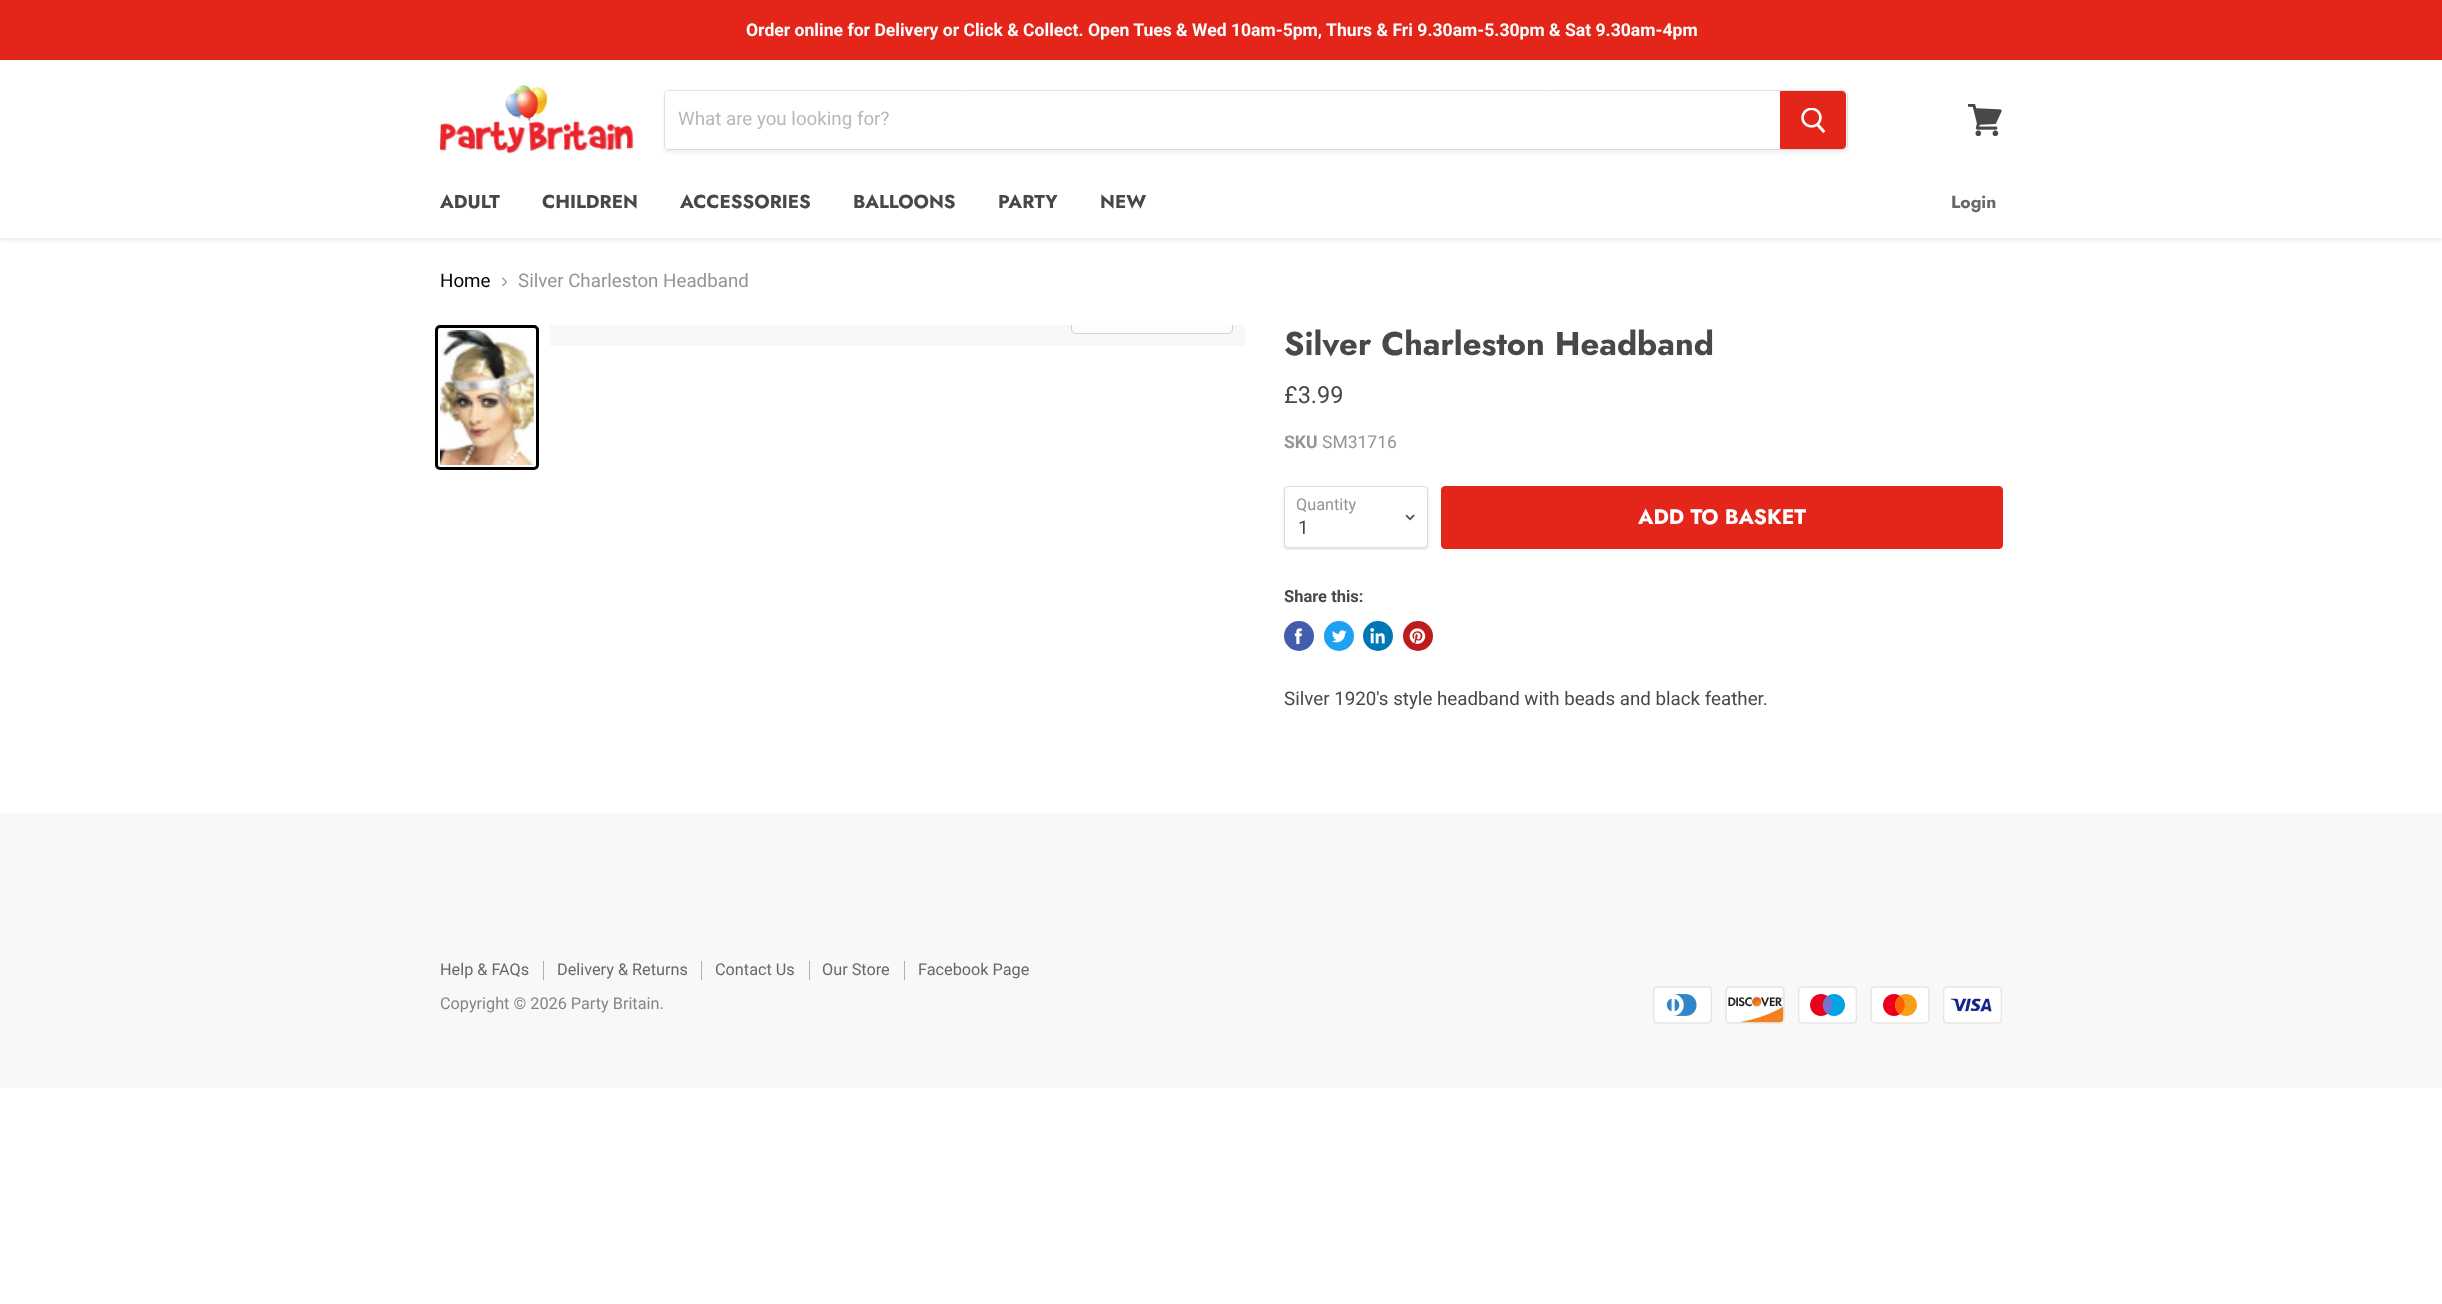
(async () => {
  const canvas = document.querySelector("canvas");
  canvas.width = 2442;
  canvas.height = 1304;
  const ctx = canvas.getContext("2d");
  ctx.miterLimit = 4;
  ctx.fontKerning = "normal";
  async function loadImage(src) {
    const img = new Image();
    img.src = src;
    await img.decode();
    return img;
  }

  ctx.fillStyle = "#ffffff";
  ctx.fillRect(0, 0, 2442, 1304);
  ctx.fillStyle = "#e32619";
  ctx.fillRect(0, 0, 2442, 60);
  ctx.fillStyle = "rgba(127, 127, 127, 0.25)";
  ctx.filter = "blur(2.5px)";
  ctx.beginPath();
  ctx.rect(0, 61, 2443, 178);
  ctx.fill();
  ctx.filter = "none";
  ctx.fillStyle = "#ffffff";
  ctx.fillRect(0, 60, 2442, 178);
  ctx.drawImage(await loadImage("img/1.png"), 440, 85, 194, 69);
  ctx.fillStyle = "rgba(127, 127, 127, 0.11)";
  ctx.filter = "blur(2px)";
  ctx.beginPath();
  ctx.roundRect(664, 93, 1184, 60, 5);
  ctx.fill();
  ctx.filter = "none";
  ctx.beginPath();
  ctx.roundRect(664.5, 90.5, 1183, 59, 4.5);
  ctx.strokeStyle = "rgba(127, 127, 127, 0.2)";
  ctx.stroke();
  ctx.fillStyle = "#ffffff";
  ctx.beginPath();
  ctx.roundRect(665, 91, 1115, 58, [4, 0, 0, 4]);
  ctx.fill();
  ctx.fillStyle = "#e32619";
  ctx.beginPath();
  ctx.roundRect(1780.5, 91.5, 65, 57, [0, 3.5, 3.5, 0]);
  ctx.fill();
  ctx.strokeStyle = "#e32619";
  ctx.stroke();
  ctx.drawImage(await loadImage("img/2.png"), 1801, 108, 25, 26);
  ctx.drawImage(await loadImage("img/3.png"), 1968, 104, 34, 32);
  ctx.drawImage(await loadImage("img/4.png"), 502, 277, 5, 10);
  ctx.beginPath();
  ctx.roundRect(436.5, 326.5, 101, 142, 3.5);
  ctx.strokeStyle = "#000000";
  ctx.lineWidth = 3;
  ctx.stroke();
  ctx.drawImage(await loadImage("img/5.png"), 440, 330, 94, 135);
  ctx.fillStyle = "#f7f7f7";
  ctx.fillRect(550, 325, 695, 21);
  ctx.save();
  ctx.beginPath();
  ctx.rect(550, 325, 695, 21);
  ctx.clip();
  ctx.beginPath();
  ctx.roundRect(1071.5, 298.5, 161, 35, 4.5);
  ctx.strokeStyle = "#d2d2d2";
  ctx.lineWidth = 1;
  ctx.stroke();
  ctx.restore();
  ctx.fillStyle = "#fefefe";
  ctx.beginPath();
  ctx.roundRect(1073, 325, 158, 8, [0, 0, 4, 4]);
  ctx.fill();
  ctx.fillStyle = "rgba(0, 0, 0, 0.15)";
  ctx.filter = "blur(1px)";
  ctx.beginPath();
  ctx.roundRect(1284, 488, 144, 61, 4);
  ctx.fill();
  ctx.filter = "none";
  ctx.fillStyle = "#ffffff";
  ctx.beginPath();
  ctx.roundRect(1284.5, 486.5, 143, 61, 3.5);
  ctx.fill();
  ctx.strokeStyle = "#dddddd";
  ctx.lineWidth = 1;
  ctx.stroke();
  ctx.drawImage(await loadImage("img/6.png"), 1405, 514, 10, 7);
  ctx.fillStyle = "#e32619";
  ctx.beginPath();
  ctx.roundRect(1441.5, 486.5, 561, 62, 3.5);
  ctx.fill();
  ctx.strokeStyle = "#e32619";
  ctx.stroke();
  ctx.fillStyle = "#425dab";
  ctx.beginPath();
  ctx.arc(1299, 636, 15, 0, Math.PI * 2);
  ctx.fill();
  ctx.drawImage(await loadImage("img/7.png"), 1294, 628, 8, 16);
  ctx.fillStyle = "#1da1f2";
  ctx.beginPath();
  ctx.arc(1339, 636, 15, 0, Math.PI * 2);
  ctx.fill();
  ctx.drawImage(await loadImage("img/8.png"), 1332, 630, 15, 13);
  ctx.fillStyle = "#0077b5";
  ctx.beginPath();
  ctx.arc(1378, 636, 15, 0, Math.PI * 2);
  ctx.fill();
  ctx.drawImage(await loadImage("img/9.png"), 1370, 628, 15, 16);
  ctx.fillStyle = "#bd1c1c";
  ctx.beginPath();
  ctx.arc(1418, 636, 15, 0, Math.PI * 2);
  ctx.fill();
  ctx.drawImage(await loadImage("img/10.png"), 1409, 628, 17, 16);
  for (const [x, y, w, h, color] of [
    [0, 813, 2442, 275, "#f8f8f8"],
    [543, 961, 1, 19, "#b0b0b0"],
    [701, 961, 1, 19, "#b0b0b0"],
    [809, 961, 1, 19, "#b0b0b0"],
    [904, 961, 1, 19, "#b0b0b0"],
  ]) {
    ctx.fillStyle = color;
    ctx.fillRect(x, y, w, h);
  }
  ctx.drawImage(await loadImage("img/11.png"), 1653, 986, 59, 38);
  ctx.drawImage(await loadImage("img/12.png"), 1725, 986, 60, 38);
  ctx.drawImage(await loadImage("img/13.png"), 1798, 986, 59, 38);
  ctx.drawImage(await loadImage("img/14.png"), 1870, 986, 60, 38);
  ctx.drawImage(await loadImage("img/15.png"), 1943, 986, 59, 38);
  ctx.font = "bold 17.58px Roboto";
  ctx.fillStyle = "#ffffff";
  ctx.fillText("Order online for Delivery or Click & Collect. Open Tues & Wed 10am-5pm, Thurs & Fri 9.30am-5.30pm & Sat 9.30am-4pm", 746, 36);
  ctx.font = "18.75px Roboto";
  ctx.fillStyle = "#b8b8b8";
  ctx.fillText("What are you looking for?", 678, 125);
  ctx.font = "bold 18.75px Jost";
  ctx.fillStyle = "#484848";
  for (const [text, x, y] of [
    ["ADULT", 440, 208],
    ["CHILDREN", 542, 208],
    ["ACCESSORIES", 680, 208],
    ["BALLOONS", 853, 208],
    ["PARTY", 998, 208],
    ["NEW", 1100, 208],
  ]) {
    ctx.fillText(text, x, y);
  }
  ctx.font = "bold 17.58px Jost";
  ctx.fillStyle = "#686868";
  ctx.fillText("Login", 1951, 208);
  ctx.font = "18.75px Roboto";
  ctx.fillStyle = "#000000";
  ctx.fillText("Home", 440, 287);
  ctx.fillStyle = "#949494";
  ctx.fillText("Silver Charleston Headband", 518, 287);
  ctx.font = "bold 32.75px Jost";
  ctx.fillStyle = "#484848";
  ctx.fillText("Silver Charleston Headband", 1284, 355);
  ctx.font = "23.5px Roboto";
  ctx.fillText("£3.99", 1284, 403);
  ctx.font = "bold 17.5px Roboto";
  ctx.fillStyle = "#949494";
  ctx.fillText("SKU", 1284, 448);
  ctx.font = "17.5px Roboto";
  ctx.fillText("SM31716", 1322, 448);
  ctx.font = "16.25px Roboto";
  ctx.fillText("Quantity", 1296, 510);
  ctx.font = "18.75px Roboto";
  ctx.fillStyle = "#484848";
  ctx.fillText("1", 1298, 534);
  ctx.font = "bold 21px Jost";
  ctx.fillStyle = "#ffffff";
  ctx.fillText("ADD TO BASKET", 1638, 524);
  ctx.font = "bold 16.5px Roboto";
  ctx.fillStyle = "#484848";
  ctx.fillText("Share this:", 1284, 602);
  ctx.font = "18.75px Roboto";
  ctx.fillText("Silver 1920's style headband with beads and black feather.", 1284, 705);
  ctx.font = "16.25px Roboto";
  ctx.fillStyle = "#686868";
  for (const [text, x, y] of [
    ["Help & FAQs", 440, 975],
    ["Delivery & Returns", 557, 975],
    ["Contact Us", 715, 975],
    ["Our Store", 822, 975],
    ["Facebook Page", 918, 975],
  ]) {
    ctx.fillText(text, x, y);
  }
  ctx.fillStyle = "#858585";
  ctx.fillText("Copyright © 2026 Party Britain.", 440, 1009);
})();
